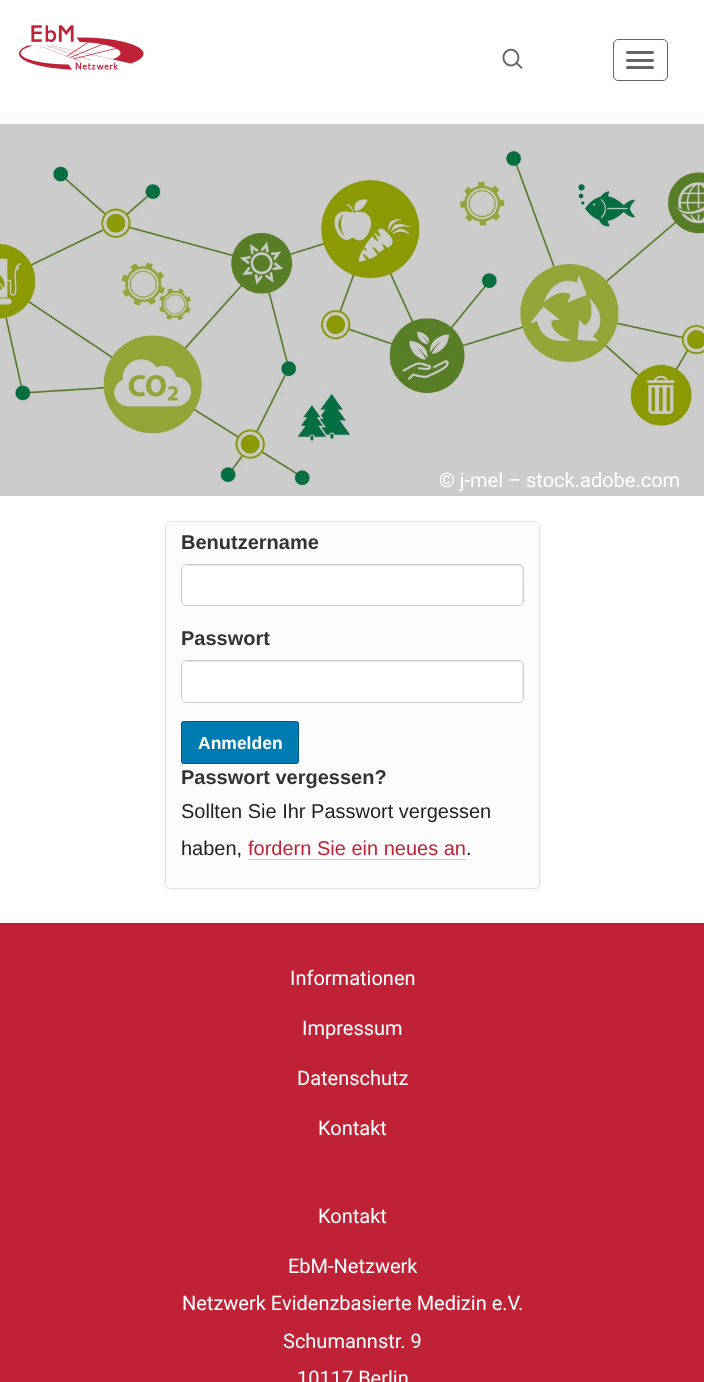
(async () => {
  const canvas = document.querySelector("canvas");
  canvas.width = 704;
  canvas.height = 1382;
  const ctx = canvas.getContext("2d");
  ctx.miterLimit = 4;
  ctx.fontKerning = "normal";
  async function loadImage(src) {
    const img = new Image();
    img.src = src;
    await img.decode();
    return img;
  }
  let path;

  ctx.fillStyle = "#ffffff";
  ctx.fillRect(0, 0, 704, 1382);
  ctx.fillStyle = "#cccccc";
  ctx.fillRect(0, 124, 704, 372);
  ctx.drawImage(await loadImage("img/1.png"), 19, 25, 125, 45);
  ctx.fillStyle = "#fbfbfb";
  ctx.fillRect(0, 113, 704, 11);
  ctx.drawImage(await loadImage("img/2.png"), 502, 48, 21, 21);
  ctx.beginPath();
  ctx.roundRect(613.5, 39.5, 54, 41, 4.5);
  ctx.strokeStyle = "#666666";
  ctx.stroke();
  ctx.fillStyle = "#666666";
  ctx.beginPath();
  ctx.roundRect(626, 51, 28, 3, 1.5);
  ctx.fill();
  ctx.beginPath();
  ctx.roundRect(626, 59, 28, 3, 1.5);
  ctx.fill();
  ctx.beginPath();
  ctx.roundRect(626, 66, 28, 3, 1.5);
  ctx.fill();
  ctx.drawImage(await loadImage("img/3.png"), 0, 148, 704, 339);
  ctx.fillStyle = "rgba(0, 0, 0, 0.05)";
  ctx.filter = "blur(2px)";
  ctx.beginPath();
  ctx.roundRect(165, 523, 375, 367, 5);
  ctx.fill();
  ctx.filter = "none";
  ctx.fillStyle = "#fcfcfd";
  ctx.beginPath();
  ctx.roundRect(165.5, 521.5, 374, 367, 4.5);
  ctx.fill();
  ctx.strokeStyle = "#e5e5e5";
  ctx.stroke();
  ctx.fillStyle = "#ffffff";
  ctx.beginPath();
  ctx.roundRect(181, 564, 343, 42, 5);
  ctx.fill();
  ctx.fillStyle = "#ececec";
  path = new Path2D("M186 566H519C524 566 522 579 522 581V604L523 602V568C523 567 522 566 521 565H186L184 567Z");
  ctx.fill(path);
  ctx.beginPath();
  ctx.roundRect(181.5, 564.5, 342, 41, 4.5);
  ctx.strokeStyle = "#cccccc";
  ctx.stroke();
  ctx.fillStyle = "#ffffff";
  ctx.beginPath();
  ctx.roundRect(181, 660, 343, 43, 5);
  ctx.fill();
  ctx.fillStyle = "#ececec";
  path = new Path2D("M186 662H519C521 662 522 664 522 666V700C523 699 523 698 523 697V665C523 663 521 661 519 661H187C186 661 184 662 184 663Z");
  ctx.fill(path);
  ctx.beginPath();
  ctx.roundRect(181.5, 660.5, 342, 42, 4.5);
  ctx.stroke();
  ctx.fillStyle = "#007bb1";
  ctx.beginPath();
  ctx.roundRect(181.5, 721.5, 117, 42, 2);
  ctx.fill();
  ctx.strokeStyle = "#00587e";
  ctx.stroke();
  ctx.fillStyle = "#cccccc";
  ctx.fillRect(248, 859, 218, 1);
  ctx.fillStyle = "#bf2236";
  ctx.fillRect(0, 923, 704, 459);
  ctx.font = "20px Roboto";
  ctx.fillStyle = "#ffffff";
  ctx.fillText("© j-mel – stock.adobe.com", 439, 487);
  ctx.font = "bold 20px Liberation Sans";
  ctx.fillStyle = "#333333";
  ctx.fillText("Benutzername", 181, 549);
  ctx.fillText("Passwort", 181, 645);
  ctx.font = "bold 17.5px Liberation Sans";
  ctx.fillStyle = "#ffffff";
  ctx.fillText("Anmelden", 198, 749);
  ctx.font = "bold 20px Liberation Sans";
  ctx.fillStyle = "#333333";
  ctx.fillText("Passwort vergessen?", 181, 784);
  ctx.font = "20px Liberation Sans";
  ctx.fillStyle = "#222222";
  ctx.fillText("Sollten Sie Ihr Passwort vergessen", 181, 818);
  ctx.fillText("haben,", 181, 855);
  ctx.fillStyle = "#bf2236";
  ctx.fillText("fordern Sie ein neues an", 248, 855);
  ctx.fillStyle = "#222222";
  ctx.fillText(".", 466, 855);
  ctx.font = "20px Roboto";
  ctx.fillStyle = "#ffffff";
  for (const [text, x, y] of [
    ["Informationen", 290, 985],
    ["Impressum", 302, 1035],
    ["Datenschutz", 297, 1085],
    ["Kontakt", 318, 1135],
    ["Kontakt", 318, 1223],
    ["EbM-Netzwerk", 288, 1273],
    ["Netzwerk Evidenzbasierte Medizin e.V.", 182, 1310],
    ["Schumannstr. 9", 283, 1348],
    ["10117 Berlin", 297, 1385],
  ]) {
    ctx.fillText(text, x, y);
  }
})();
